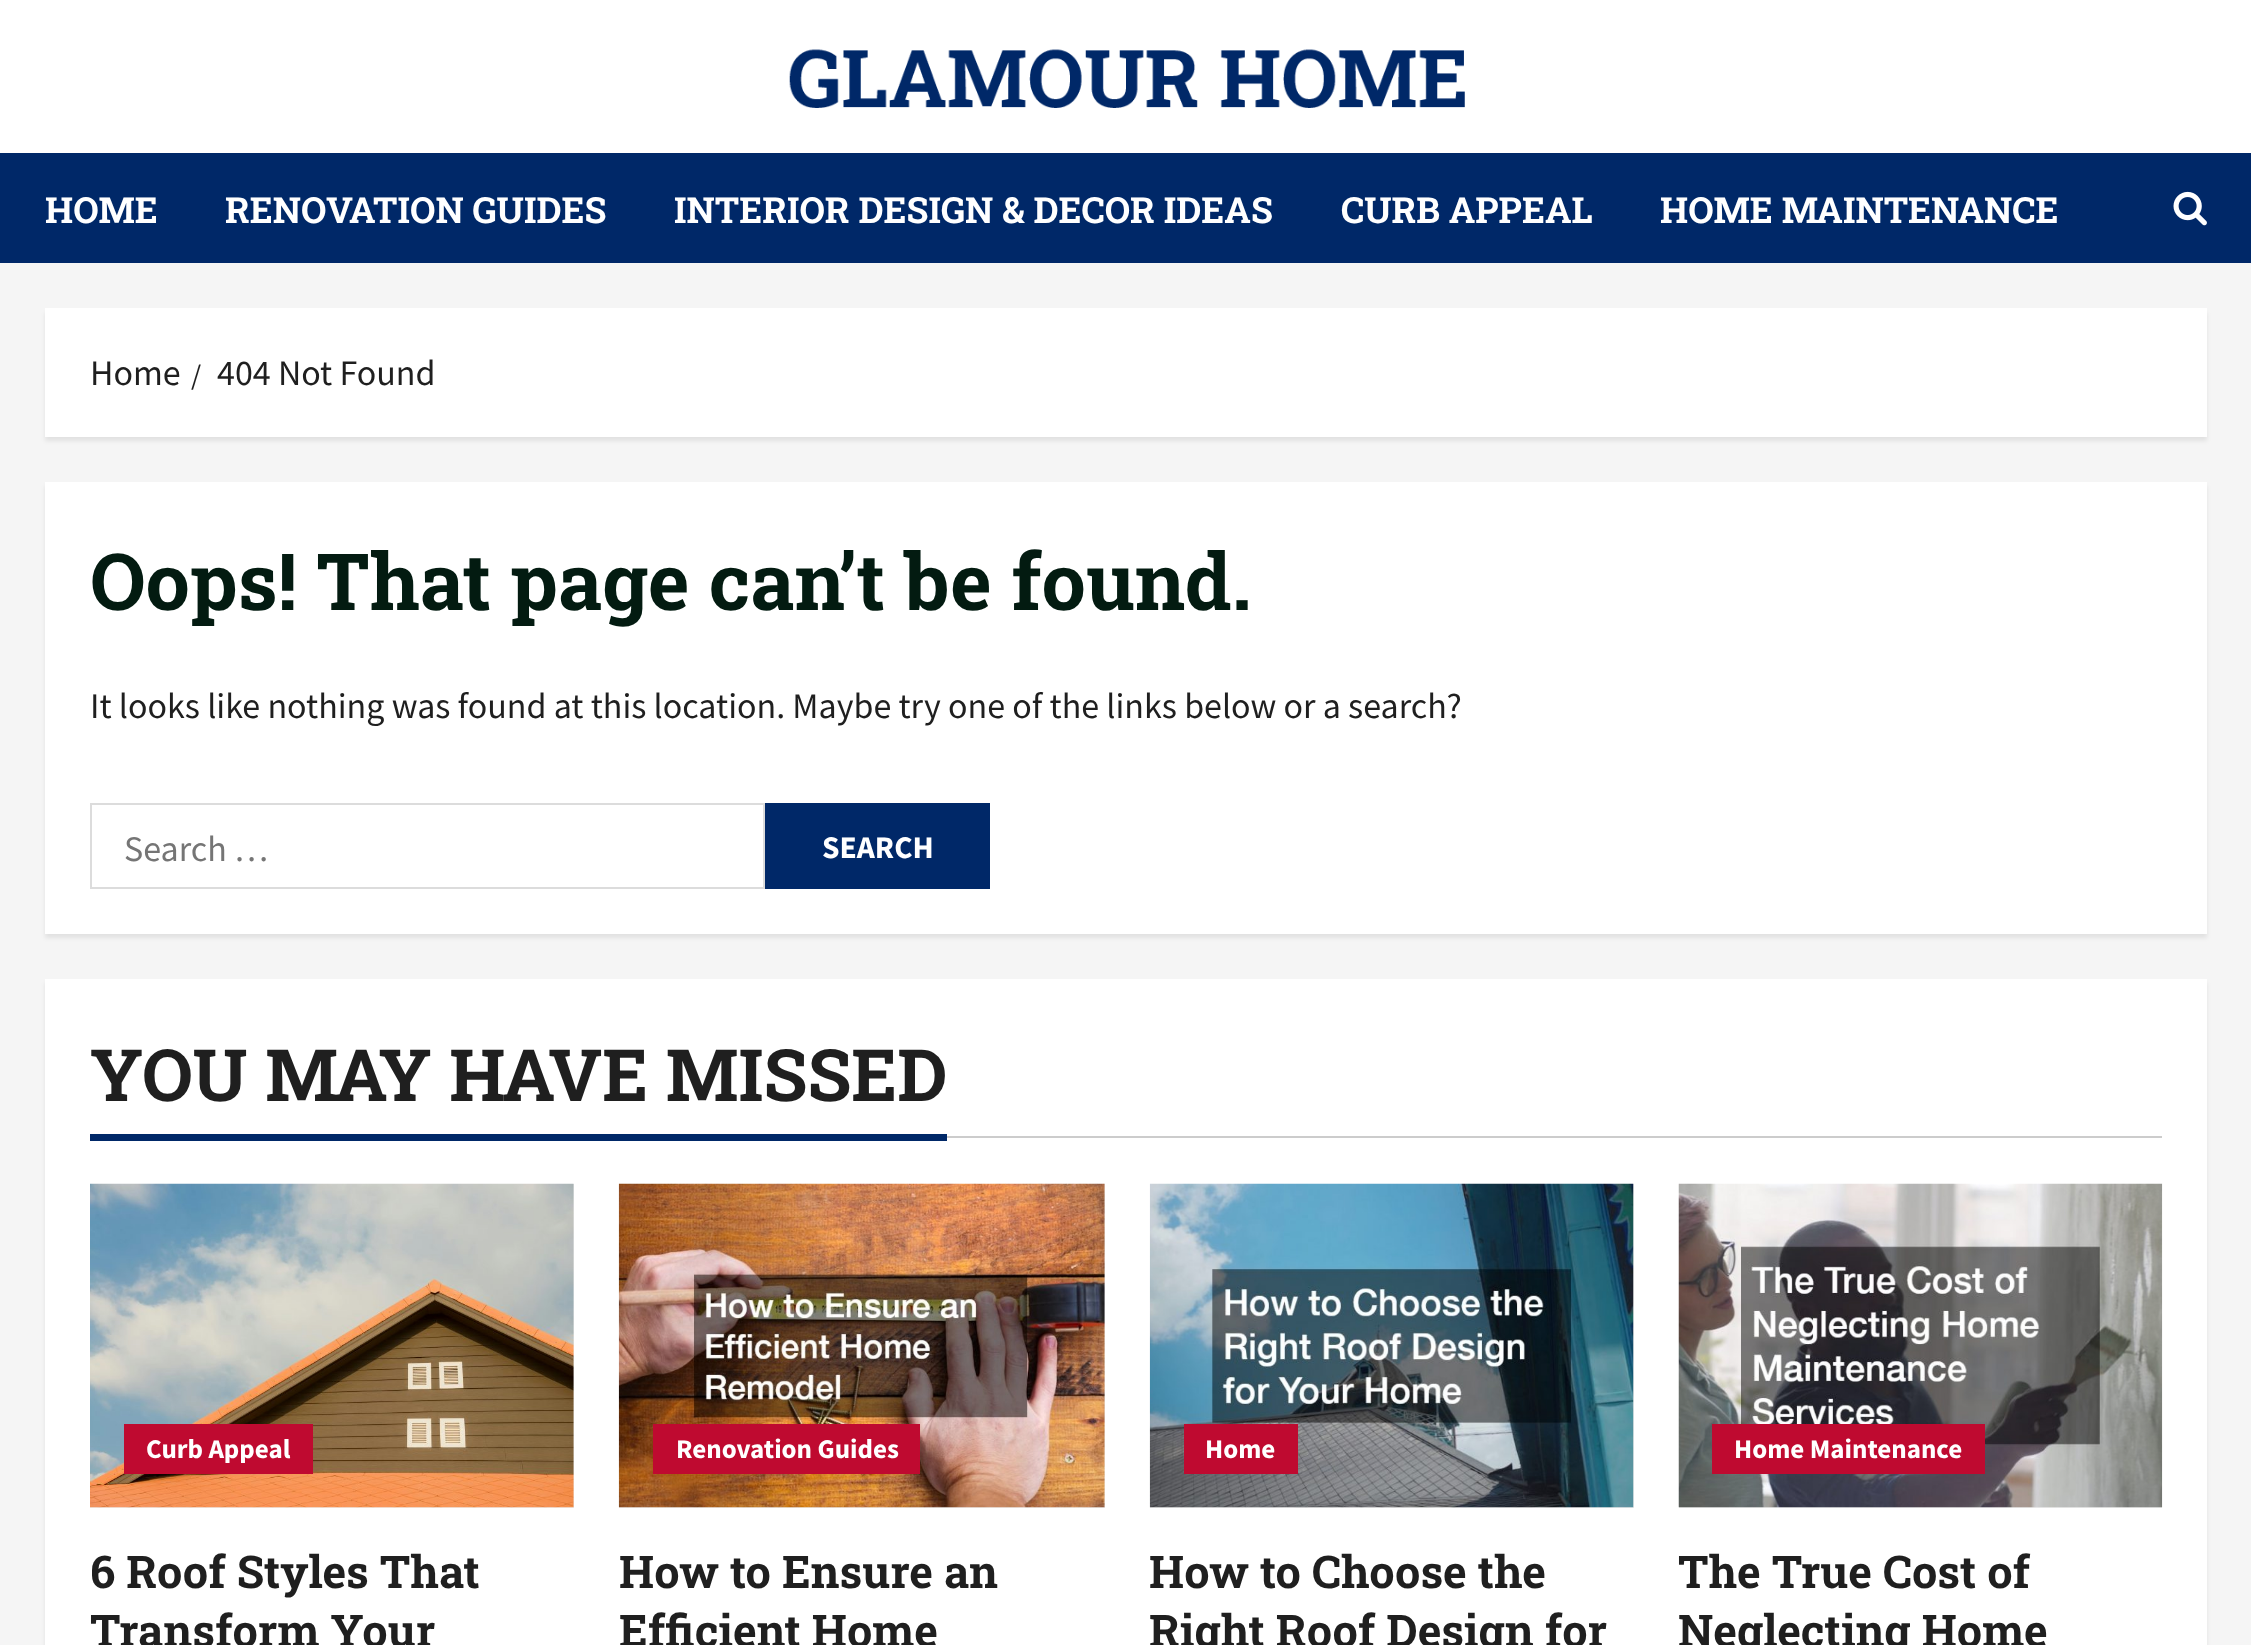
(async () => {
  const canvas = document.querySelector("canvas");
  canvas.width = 2251;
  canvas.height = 1645;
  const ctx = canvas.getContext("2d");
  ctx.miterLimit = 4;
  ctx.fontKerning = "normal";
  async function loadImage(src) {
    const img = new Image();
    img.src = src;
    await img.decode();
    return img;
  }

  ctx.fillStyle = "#f5f5f5";
  ctx.fillRect(0, 0, 2251, 1645);
  ctx.fillStyle = "#ffffff";
  ctx.fillRect(0, 0, 2251, 153);
  ctx.drawImage(await loadImage("img/1.png"), 789, 49, 676, 59);
  ctx.fillStyle = "#002868";
  ctx.fillRect(0, 153, 2251, 110);
  ctx.drawImage(await loadImage("img/2.png"), 2173, 191, 34, 35);
  ctx.fillStyle = "rgba(0, 0, 0, 0.08)";
  ctx.filter = "blur(2px)";
  ctx.beginPath();
  ctx.rect(45, 313, 2162, 128);
  ctx.fill();
  ctx.filter = "none";
  ctx.fillStyle = "#ffffff";
  ctx.fillRect(45, 308, 2162, 129);
  ctx.fillStyle = "rgba(0, 0, 0, 0.08)";
  ctx.filter = "blur(2px)";
  ctx.beginPath();
  ctx.rect(45, 486, 2162, 452);
  ctx.fill();
  ctx.filter = "none";
  ctx.fillStyle = "#ffffff";
  ctx.fillRect(45, 482, 2162, 452);
  ctx.strokeStyle = "#dcdcdc";
  ctx.lineWidth = 2;
  ctx.strokeRect(91, 804, 673, 84);
  ctx.fillStyle = "#002868";
  ctx.fillRect(765, 803, 225, 86);
  ctx.fillStyle = "rgba(0, 0, 0, 0.08)";
  ctx.filter = "blur(2px)";
  ctx.beginPath();
  ctx.rect(45, 983, 2162, 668);
  ctx.fill();
  ctx.filter = "none";
  for (const [x, y, w, h, color] of [
    [45, 979, 2162, 666, "#ffffff"],
    [947, 1136, 1215, 2, "#cccccc"],
    [90, 1134, 857, 7, "#002868"],
    [90, 1184, 484, 324, "#ececec"],
  ]) {
    ctx.fillStyle = color;
    ctx.fillRect(x, y, w, h);
  }
  ctx.drawImage(await loadImage("img/3.png"), 90, 1183, 484, 325);
  ctx.fillStyle = "#bf0a30";
  ctx.fillRect(124, 1424, 189, 50);
  ctx.fillStyle = "#ececec";
  ctx.fillRect(619, 1184, 486, 324);
  ctx.drawImage(await loadImage("img/4.png"), 618, 1183, 487, 325);
  ctx.fillStyle = "#bf0a30";
  ctx.fillRect(653, 1424, 267, 50);
  ctx.fillStyle = "#ececec";
  ctx.fillRect(1150, 1184, 484, 324);
  ctx.drawImage(await loadImage("img/5.png"), 1149, 1183, 485, 325);
  ctx.fillStyle = "#bf0a30";
  ctx.fillRect(1184, 1424, 114, 50);
  ctx.fillStyle = "#ececec";
  ctx.fillRect(1679, 1507, 483, 1);
  ctx.drawImage(await loadImage("img/6.png"), 1678, 1183, 485, 325);
  ctx.fillStyle = "#bf0a30";
  ctx.fillRect(1712, 1424, 273, 50);
  ctx.font = "bold 36px Roboto Slab";
  ctx.fillStyle = "#ffffff";
  for (const [text, x, y] of [
    ["HOME", 45, 223],
    ["RENOVATION GUIDES", 225, 223],
    ["INTERIOR DESIGN & DECOR IDEAS", 674, 223],
    ["CURB APPEAL", 1341, 223],
    ["HOME MAINTENANCE", 1660, 223],
  ]) {
    ctx.fillText(text, x, y);
  }
  ctx.font = "36px Source Sans Pro";
  ctx.fillStyle = "#1f1f1f";
  ctx.fillText("Home", 90, 385);
  ctx.font = "29px Source Sans Pro";
  ctx.fillText("/", 191, 385);
  ctx.font = "36px Source Sans Pro";
  ctx.fillText("404 Not Found", 217, 385);
  ctx.font = "bold 78.75px Roboto Slab";
  ctx.fillStyle = "#031b11";
  ctx.fillText("Oops! That page can’t be found.", 90, 610);
  ctx.font = "36px Source Sans Pro";
  ctx.fillStyle = "#1f1f1f";
  ctx.fillText("It looks like nothing was found at this location. Maybe try one of the links below or a search?", 90, 718);
  ctx.fillStyle = "#757575";
  ctx.fillText("Search …", 124, 861);
  ctx.font = "bold 31.5px Source Sans Pro";
  ctx.fillStyle = "#ffffff";
  ctx.fillText("SEARCH", 822, 858);
  ctx.font = "bold 72px Roboto Slab";
  ctx.fillStyle = "#1f1f1f";
  ctx.fillText("YOU MAY HAVE MISSED", 90, 1101);
  ctx.font = "bold 27px Source Sans Pro";
  ctx.fillStyle = "#ffffff";
  ctx.fillText("Curb Appeal", 146, 1458);
  ctx.font = "bold 45px Roboto Slab";
  ctx.fillStyle = "#1f1f1f";
  ctx.fillText("6 Roof Styles That", 90, 1588);
  ctx.fillText("Transform Your", 90, 1647);
  ctx.font = "bold 27px Source Sans Pro";
  ctx.fillStyle = "#ffffff";
  ctx.fillText("Renovation Guides", 676, 1458);
  ctx.font = "bold 45px Roboto Slab";
  ctx.fillStyle = "#1f1f1f";
  ctx.fillText("How to Ensure an", 619, 1588);
  ctx.fillText("Efficient Home", 619, 1647);
  ctx.font = "bold 27px Source Sans Pro";
  ctx.fillStyle = "#ffffff";
  ctx.fillText("Home", 1205, 1458);
  ctx.font = "bold 45px Roboto Slab";
  ctx.fillStyle = "#1f1f1f";
  ctx.fillText("How to Choose the", 1149, 1588);
  ctx.fillText("Right Roof Design for", 1149, 1647);
  ctx.font = "bold 27px Source Sans Pro";
  ctx.fillStyle = "#ffffff";
  ctx.fillText("Home Maintenance", 1734, 1458);
  ctx.font = "bold 45px Roboto Slab";
  ctx.fillStyle = "#1f1f1f";
  ctx.fillText("The True Cost of", 1678, 1588);
  ctx.fillText("Neglecting Home", 1678, 1647);
})();
